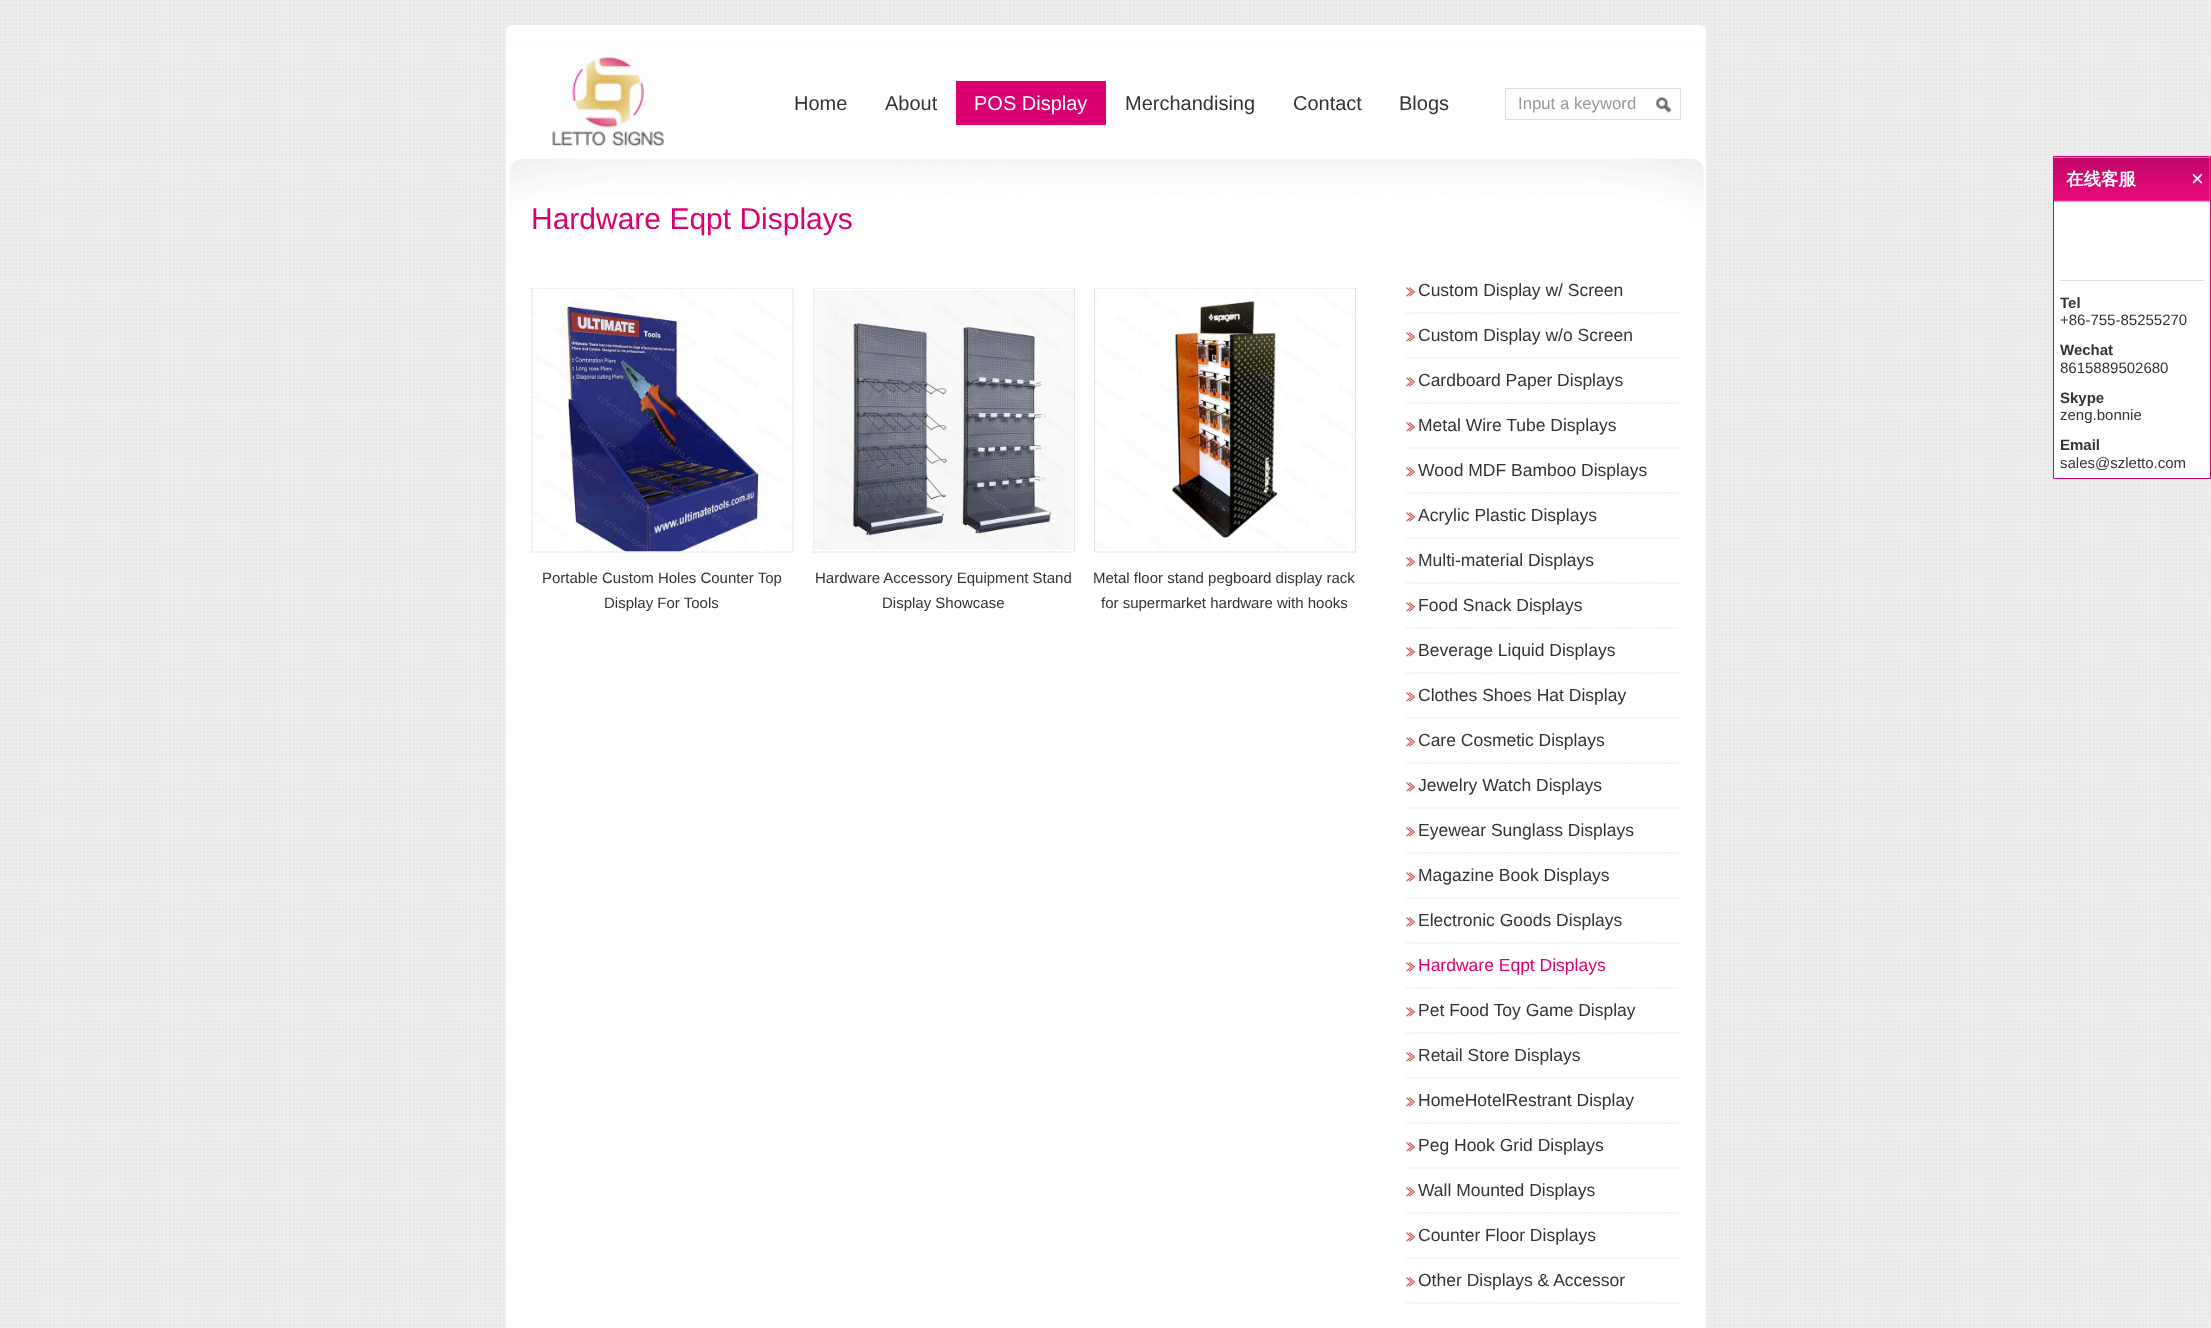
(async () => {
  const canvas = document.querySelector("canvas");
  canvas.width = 2211;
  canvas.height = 1328;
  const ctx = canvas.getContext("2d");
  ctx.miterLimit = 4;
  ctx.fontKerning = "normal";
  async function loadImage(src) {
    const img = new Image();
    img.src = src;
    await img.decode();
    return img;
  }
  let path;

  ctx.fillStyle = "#ffffff";
  ctx.fillRect(0, 0, 2211, 1328);
  ctx.drawImage(await loadImage("img/1.png"), 0, 0, 2211, 1328);
  ctx.drawImage(await loadImage("img/2.png"), 506, 25, 1201, 19);
  ctx.fillRect(506, 44, 1200, 1284);
  ctx.drawImage(await loadImage("img/3.png"), 552, 57, 112, 90);
  for (const [x, y, w, h, color] of [
    [956, 81, 150, 44, "#db0071"],
    [1505, 88, 176, 1, "#dddddd"],
    [1505, 119, 139, 1, "#dddddd"],
    [1505, 88, 1, 32, "#dddddd"],
  ]) {
    ctx.fillStyle = color;
    ctx.fillRect(x, y, w, h);
  }
  ctx.drawImage(await loadImage("img/4.png"), 1656, 97, 16, 16);
  ctx.fillRect(1680, 88, 1, 32);
  ctx.fillRect(1644, 119, 37, 1);
  ctx.drawImage(await loadImage("img/5.png"), 510, 157, 1197, 109);
  ctx.save();
  ctx.beginPath();
  ctx.rect(531, 288, 263, 327);
  ctx.clip();
  path = new Path2D("M531 288H794");
  ctx.strokeStyle = "#cccccc";
  ctx.lineWidth = 1.2;
  ctx.setLineDash([1.25, 1.25]);
  ctx.stroke(path);
  ctx.restore();
  path = new Path2D("M793 287.5V552.5");
  ctx.strokeStyle = "#cccccc";
  ctx.lineWidth = 1.2;
  ctx.setLineDash([1.25, 1.25]);
  ctx.stroke(path);
  path = new Path2D("M531 552H794");
  ctx.stroke(path);
  path = new Path2D("M532 287.5V552.5");
  ctx.stroke(path);
  ctx.drawImage(await loadImage("img/6.png"), 532, 289, 261, 263);
  ctx.save();
  ctx.beginPath();
  ctx.rect(813, 288, 262, 327);
  ctx.clip();
  path = new Path2D("M812.5 288H1075");
  ctx.stroke(path);
  path = new Path2D("M1074.5 287.5V552.5");
  ctx.stroke(path);
  ctx.restore();
  path = new Path2D("M812.5 552H1075");
  ctx.stroke(path);
  ctx.save();
  ctx.beginPath();
  ctx.rect(813, 288, 262, 327);
  ctx.clip();
  path = new Path2D("M813 287.5V552.5");
  ctx.stroke(path);
  ctx.restore();
  ctx.drawImage(await loadImage("img/7.png"), 814, 290, 260, 260);
  ctx.save();
  ctx.beginPath();
  ctx.rect(1094, 288, 262, 327);
  ctx.clip();
  path = new Path2D("M1094 288H1356");
  ctx.stroke(path);
  path = new Path2D("M1355.5 287.5V552.5");
  ctx.stroke(path);
  ctx.restore();
  path = new Path2D("M1094 552H1356");
  ctx.stroke(path);
  ctx.save();
  ctx.beginPath();
  ctx.rect(1094, 288, 262, 327);
  ctx.clip();
  path = new Path2D("M1094.5 287.5V552.5");
  ctx.stroke(path);
  ctx.restore();
  ctx.drawImage(await loadImage("img/8.png"), 1095, 290, 260, 260);
  ctx.drawImage(await loadImage("img/9.png"), 1406, 287, 9, 10);
  path = new Path2D("M1406 313H1681");
  ctx.strokeStyle = "#dddddd";
  ctx.stroke(path);
  ctx.drawImage(await loadImage("img/9.png"), 1406, 332, 9, 10);
  path = new Path2D("M1406 358H1681");
  ctx.stroke(path);
  ctx.drawImage(await loadImage("img/9.png"), 1406, 377, 9, 10);
  path = new Path2D("M1406 403H1681");
  ctx.stroke(path);
  ctx.drawImage(await loadImage("img/9.png"), 1406, 422, 9, 10);
  path = new Path2D("M1406 448H1681");
  ctx.stroke(path);
  ctx.drawImage(await loadImage("img/9.png"), 1406, 467, 9, 10);
  path = new Path2D("M1406 493H1681");
  ctx.stroke(path);
  ctx.drawImage(await loadImage("img/10.png"), 1406, 512, 9, 10);
  path = new Path2D("M1406 538H1681");
  ctx.stroke(path);
  ctx.drawImage(await loadImage("img/9.png"), 1406, 557, 9, 10);
  path = new Path2D("M1406 583H1681");
  ctx.stroke(path);
  ctx.drawImage(await loadImage("img/9.png"), 1406, 602, 9, 10);
  path = new Path2D("M1406 628H1681");
  ctx.stroke(path);
  ctx.drawImage(await loadImage("img/9.png"), 1406, 647, 9, 10);
  path = new Path2D("M1406 673H1681");
  ctx.stroke(path);
  ctx.drawImage(await loadImage("img/9.png"), 1406, 692, 9, 10);
  path = new Path2D("M1406 718H1681");
  ctx.stroke(path);
  ctx.drawImage(await loadImage("img/9.png"), 1406, 737, 9, 10);
  path = new Path2D("M1406 763H1681");
  ctx.stroke(path);
  ctx.drawImage(await loadImage("img/9.png"), 1406, 782, 9, 10);
  path = new Path2D("M1406 808H1681");
  ctx.stroke(path);
  ctx.drawImage(await loadImage("img/9.png"), 1406, 827, 9, 10);
  path = new Path2D("M1406 853H1681");
  ctx.stroke(path);
  ctx.drawImage(await loadImage("img/9.png"), 1406, 872, 9, 10);
  path = new Path2D("M1406 898H1681");
  ctx.stroke(path);
  ctx.drawImage(await loadImage("img/9.png"), 1406, 917, 9, 10);
  path = new Path2D("M1406 943H1681");
  ctx.stroke(path);
  ctx.drawImage(await loadImage("img/9.png"), 1406, 962, 9, 10);
  path = new Path2D("M1406 988H1681");
  ctx.stroke(path);
  ctx.drawImage(await loadImage("img/9.png"), 1406, 1007, 9, 10);
  path = new Path2D("M1406 1033H1681");
  ctx.stroke(path);
  ctx.drawImage(await loadImage("img/9.png"), 1406, 1052, 9, 10);
  path = new Path2D("M1406 1078H1681");
  ctx.stroke(path);
  ctx.drawImage(await loadImage("img/9.png"), 1406, 1097, 9, 10);
  path = new Path2D("M1406 1123H1681");
  ctx.stroke(path);
  ctx.drawImage(await loadImage("img/9.png"), 1406, 1142, 9, 10);
  path = new Path2D("M1406 1168H1681");
  ctx.stroke(path);
  ctx.drawImage(await loadImage("img/9.png"), 1406, 1187, 9, 10);
  path = new Path2D("M1406 1213H1681");
  ctx.stroke(path);
  ctx.drawImage(await loadImage("img/9.png"), 1406, 1232, 9, 10);
  path = new Path2D("M1406 1258H1681");
  ctx.stroke(path);
  ctx.drawImage(await loadImage("img/9.png"), 1406, 1277, 9, 10);
  path = new Path2D("M1406 1303H1681");
  ctx.stroke(path);
  ctx.fillStyle = "#ffffff";
  ctx.beginPath();
  ctx.rect(2053.5, 156.5, 157, 322);
  ctx.fill();
  ctx.strokeStyle = "#db0071";
  ctx.lineWidth = 1;
  ctx.setLineDash([]);
  ctx.stroke();
  ctx.drawImage(await loadImage("img/11.png"), 2053, 157, 157, 45);
  ctx.fillStyle = "#dddddd";
  ctx.fillRect(2060, 280, 144, 1);
  ctx.font = "20px Liberation Sans";
  ctx.fillStyle = "#333333";
  ctx.fillText("Home", 794, 110);
  ctx.fillText("About", 885, 110);
  ctx.fillStyle = "#ffffff";
  ctx.fillText("POS Display", 974, 110);
  ctx.fillStyle = "#333333";
  for (const [text, x, y] of [
    ["Merchandising", 1125, 110],
    ["Contact", 1293, 110],
    ["Blogs", 1399, 110],
  ]) {
    ctx.fillText(text, x, y);
  }
  ctx.font = "16.75px Liberation Sans";
  ctx.fillStyle = "#999999";
  ctx.fillText("Input a keyword", 1518, 109);
  ctx.font = "30px Liberation Sans";
  ctx.fillStyle = "#db0071";
  ctx.fillText("Hardware Eqpt Displays", 531, 229);
  ctx.font = "15px Liberation Sans";
  ctx.fillStyle = "#333333";
  for (const [text, x, y] of [
    ["Portable Custom Holes Counter Top", 542, 583],
    ["Display For Tools", 604, 608],
    ["Hardware Accessory Equipment Stand", 815, 583],
    ["Display Showcase", 882, 608],
    ["Metal floor stand pegboard display rack", 1093, 583],
    ["for supermarket hardware with hooks", 1101, 608],
  ]) {
    ctx.fillText(text, x, y);
  }
  ctx.font = "17.5px Liberation Sans";
  for (const [text, x, y] of [
    ["Custom Display w/ Screen", 1418, 296],
    ["Custom Display w/o Screen", 1418, 341],
    ["Cardboard Paper Displays", 1418, 386],
    ["Metal Wire Tube Displays", 1418, 431],
    ["Wood MDF Bamboo Displays", 1418, 476],
    ["Acrylic Plastic Displays", 1418, 521],
    ["Multi-material Displays", 1418, 566],
    ["Food Snack Displays", 1418, 611],
    ["Beverage Liquid Displays", 1418, 656],
    ["Clothes Shoes Hat Display", 1418, 701],
    ["Care Cosmetic Displays", 1418, 746],
    ["Jewelry Watch Displays", 1418, 791],
    ["Eyewear Sunglass Displays", 1418, 836],
    ["Magazine Book Displays", 1418, 881],
    ["Electronic Goods Displays", 1418, 926],
  ]) {
    ctx.fillText(text, x, y);
  }
  ctx.fillStyle = "#db0071";
  ctx.fillText("Hardware Eqpt Displays", 1418, 971);
  ctx.fillStyle = "#333333";
  for (const [text, x, y] of [
    ["Pet Food Toy Game Display", 1418, 1016],
    ["Retail Store Displays", 1418, 1061],
    ["HomeHotelRestrant Display", 1418, 1106],
    ["Peg Hook Grid Displays", 1418, 1151],
    ["Wall Mounted Displays", 1418, 1196],
    ["Counter Floor Displays", 1418, 1241],
    ["Other Displays & Accessor", 1418, 1286],
  ]) {
    ctx.fillText(text, x, y);
  }
  ctx.font = "bold 17.5px WenQuanYi Zen Hei";
  ctx.fillStyle = "#ffffff";
  ctx.fillText("在线客服", 2066, 185);
  ctx.font = "22px Liberation Sans";
  ctx.fillText("×", 2191, 186);
  ctx.font = "bold 15px Liberation Sans";
  ctx.fillStyle = "#333333";
  ctx.fillText("Tel", 2060, 308);
  ctx.font = "15px Liberation Sans";
  ctx.fillText("+86-755-85255270", 2060, 325);
  ctx.font = "bold 15px Liberation Sans";
  ctx.fillText("Wechat", 2060, 355);
  ctx.font = "15px Liberation Sans";
  ctx.fillText("8615889502680", 2060, 373);
  ctx.font = "bold 15px Liberation Sans";
  ctx.fillText("Skype", 2060, 403);
  ctx.font = "15px Liberation Sans";
  ctx.fillText("zeng.bonnie", 2060, 420);
  ctx.font = "bold 15px Liberation Sans";
  ctx.fillText("Email", 2060, 450);
  ctx.font = "15px Liberation Sans";
  ctx.fillText("sales@szletto.com", 2060, 468);
})();
